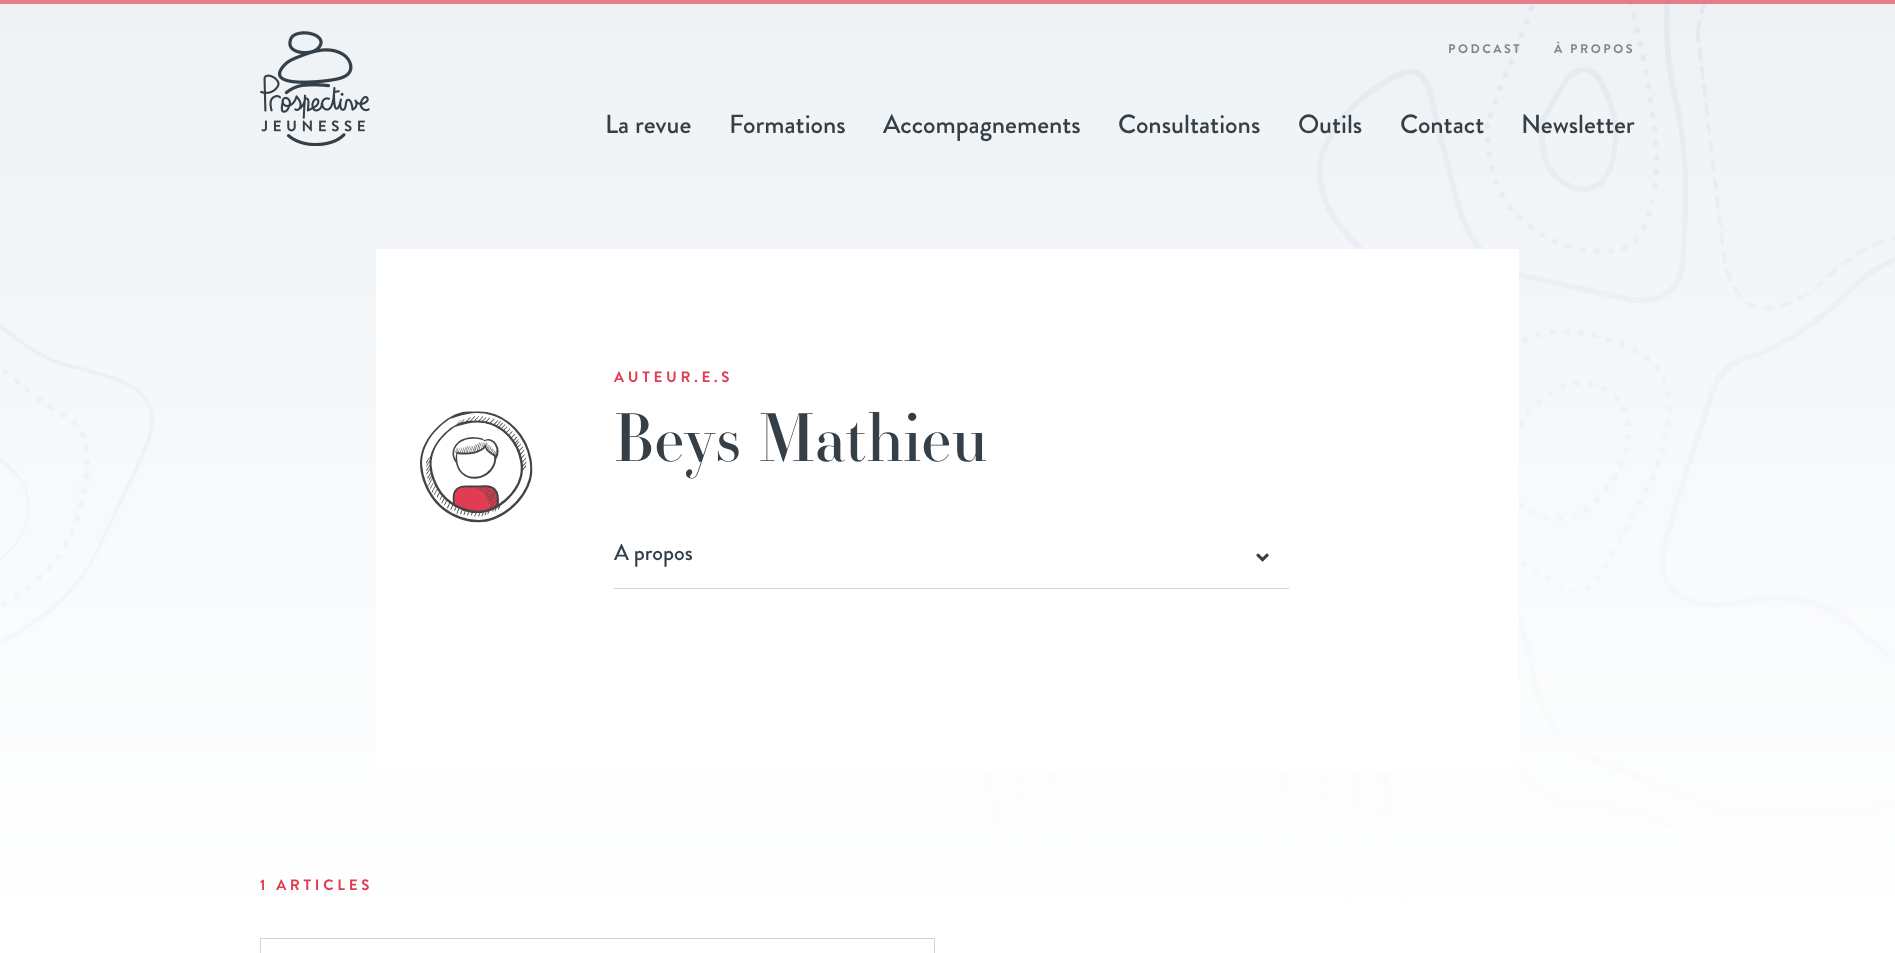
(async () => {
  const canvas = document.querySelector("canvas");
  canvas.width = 1895;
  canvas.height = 953;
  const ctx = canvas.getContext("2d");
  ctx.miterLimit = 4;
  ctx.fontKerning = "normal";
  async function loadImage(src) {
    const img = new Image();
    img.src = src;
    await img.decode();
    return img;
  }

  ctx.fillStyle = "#ffffff";
  ctx.fillRect(0, 0, 1895, 953);
  ctx.drawImage(await loadImage("img/2.png"), 0, 0, 1895, 930);
  ctx.fillStyle = "rgba(224, 61, 82, 0.65)";
  ctx.fillRect(0, 0, 1895, 4);
  ctx.drawImage(await loadImage("img/1.png"), 260, 31, 110, 115);
  ctx.fillStyle = "#ffffff";
  ctx.fillRect(376, 249, 1143, 521);
  ctx.drawImage(await loadImage("img/3.png"), 420, 411, 113, 112);
  ctx.fillStyle = "#d4d4d4";
  ctx.fillRect(614, 588, 675, 1);
  ctx.drawImage(await loadImage("img/4.png"), 1256, 553, 13, 9);
  ctx.strokeStyle = "#d4d4d4";
  ctx.strokeRect(260.5, 938.5, 674, 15);
  ctx.letterSpacing = "2.5px";
  ctx.font = "bold 12.5px Brandon Grotesque";
  ctx.fillStyle = "#7f878d";
  ctx.fillText("PODCAST", 1448, 53);
  ctx.fillText("À PROPOS", 1554, 53);
  ctx.letterSpacing = "0px";
  ctx.font = "500 26.25px Brandon Grotesque";
  ctx.fillStyle = "#343f48";
  for (const [text, x, y] of [
    ["La revue", 605, 133],
    ["Formations", 729, 133],
    ["Accompagnements", 883, 133],
    ["Consultations", 1118, 133],
    ["Outils", 1298, 133],
    ["Contact", 1400, 133],
    ["Newsletter", 1521, 133],
  ]) {
    ctx.fillText(text, x, y);
  }
  ctx.letterSpacing = "3.75px";
  ctx.font = "bold 15px Brandon Grotesque";
  ctx.fillStyle = "#e03d52";
  ctx.fillText("AUTEUR.E.S", 614, 382);
  ctx.letterSpacing = "0px";
  ctx.font = "65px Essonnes";
  ctx.fillStyle = "#343f48";
  ctx.fillText("Beys Mathieu", 614, 461);
  ctx.font = "500 22.5px Brandon Grotesque";
  ctx.fillText("A propos", 614, 560);
  ctx.letterSpacing = "3.75px";
  ctx.font = "bold 15px Brandon Grotesque";
  ctx.fillStyle = "#e03d52";
  ctx.fillText("1 ARTICLES", 260, 890);
})();
